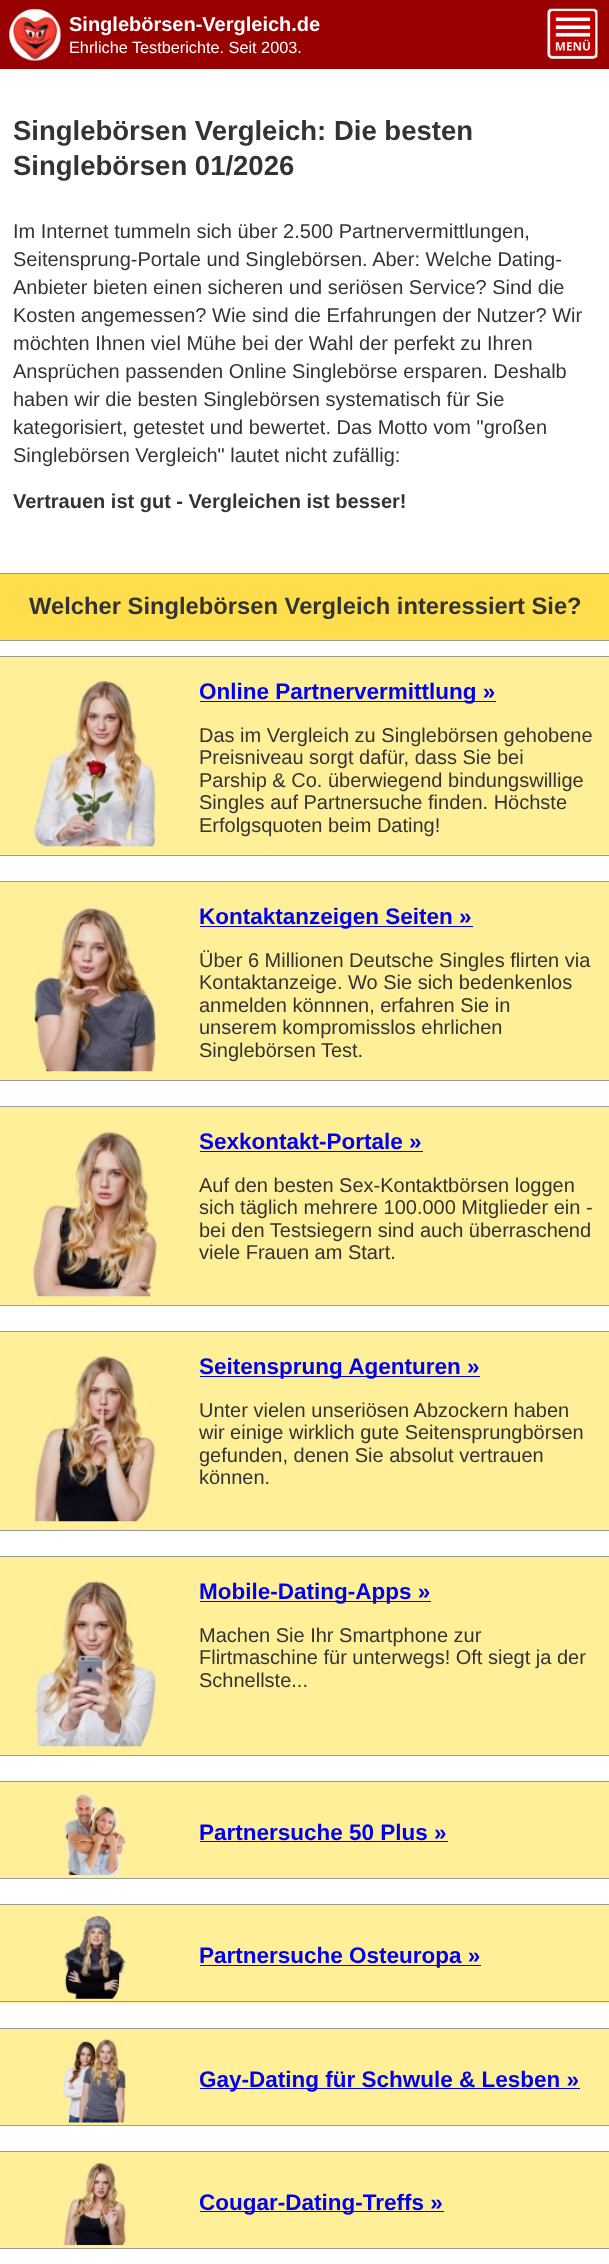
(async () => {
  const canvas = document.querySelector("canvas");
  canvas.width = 609;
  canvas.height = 2264;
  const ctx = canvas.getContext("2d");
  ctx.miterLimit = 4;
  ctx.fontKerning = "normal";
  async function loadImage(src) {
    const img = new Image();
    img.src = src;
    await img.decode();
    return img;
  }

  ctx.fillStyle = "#ffffff";
  ctx.fillRect(0, 0, 609, 2264);
  ctx.fillStyle = "#990000";
  ctx.fillRect(0, 0, 609, 69);
  ctx.drawImage(await loadImage("img/1.png"), 9, 9, 52, 52);
  ctx.drawImage(await loadImage("img/2.png"), 547, 8, 51, 51);
  for (const [x, y, w, h, color] of [
    [0, 574, 609, 66, "#ffde4d"],
    [0, 573, 609, 1, "#999999"],
    [0, 640, 609, 1, "#999999"],
    [0, 657, 609, 198, "#ffef99"],
    [0, 656, 609, 1, "#999999"],
    [0, 855, 609, 1, "#999999"],
  ]) {
    ctx.fillStyle = color;
    ctx.fillRect(x, y, w, h);
  }
  ctx.drawImage(await loadImage("img/3.png"), 32, 680, 125, 167);
  for (const [x, y, w, h, color] of [
    [200, 701, 296, 1, "#0000ee"],
    [0, 882, 609, 198, "#ffef99"],
    [0, 881, 609, 1, "#999999"],
    [0, 1080, 609, 1, "#999999"],
  ]) {
    ctx.fillStyle = color;
    ctx.fillRect(x, y, w, h);
  }
  ctx.drawImage(await loadImage("img/4.png"), 33, 906, 125, 166);
  for (const [x, y, w, h, color] of [
    [200, 926, 273, 1, "#0000ee"],
    [0, 1107, 609, 198, "#ffef99"],
    [0, 1106, 609, 1, "#999999"],
    [0, 1305, 609, 1, "#999999"],
  ]) {
    ctx.fillStyle = color;
    ctx.fillRect(x, y, w, h);
  }
  ctx.drawImage(await loadImage("img/5.png"), 32, 1130, 126, 167);
  for (const [x, y, w, h, color] of [
    [200, 1151, 223, 1, "#0000ee"],
    [0, 1332, 609, 198, "#ffef99"],
    [0, 1331, 609, 1, "#999999"],
    [0, 1530, 609, 1, "#999999"],
  ]) {
    ctx.fillStyle = color;
    ctx.fillRect(x, y, w, h);
  }
  ctx.drawImage(await loadImage("img/6.png"), 34, 1355, 123, 167);
  for (const [x, y, w, h, color] of [
    [200, 1376, 280, 1, "#0000ee"],
    [0, 1557, 609, 198, "#ffef99"],
    [0, 1556, 609, 1, "#999999"],
    [0, 1755, 609, 1, "#999999"],
  ]) {
    ctx.fillStyle = color;
    ctx.fillRect(x, y, w, h);
  }
  ctx.drawImage(await loadImage("img/7.png"), 33, 1580, 125, 167);
  for (const [x, y, w, h, color] of [
    [200, 1601, 231, 1, "#0000ee"],
    [0, 1782, 609, 96, "#ffef99"],
    [0, 1781, 609, 1, "#999999"],
    [0, 1878, 609, 1, "#999999"],
  ]) {
    ctx.fillStyle = color;
    ctx.fillRect(x, y, w, h);
  }
  ctx.drawImage(await loadImage("img/8.png"), 63, 1792, 64, 83);
  for (const [x, y, w, h, color] of [
    [200, 1841, 248, 1, "#0000ee"],
    [0, 1905, 609, 98, "#ffef99"],
    [0, 1904, 609, 1, "#999999"],
    [0, 2001, 609, 1, "#999999"],
  ]) {
    ctx.fillStyle = color;
    ctx.fillRect(x, y, w, h);
  }
  ctx.drawImage(await loadImage("img/9.png"), 63, 1915, 64, 84);
  for (const [x, y, w, h, color] of [
    [200, 1965, 281, 1, "#0000ee"],
    [0, 2029, 609, 96, "#ffef99"],
    [0, 2028, 609, 1, "#999999"],
    [0, 2125, 609, 1, "#999999"],
  ]) {
    ctx.fillStyle = color;
    ctx.fillRect(x, y, w, h);
  }
  ctx.drawImage(await loadImage("img/10.png"), 63, 2038, 64, 85);
  for (const [x, y, w, h, color] of [
    [200, 2088, 380, 1, "#0000ee"],
    [0, 2152, 609, 96, "#ffef99"],
    [0, 2151, 609, 1, "#999999"],
    [0, 2248, 609, 1, "#999999"],
  ]) {
    ctx.fillStyle = color;
    ctx.fillRect(x, y, w, h);
  }
  ctx.drawImage(await loadImage("img/11.png"), 63, 2162, 64, 83);
  ctx.fillStyle = "#0000ee";
  ctx.fillRect(200, 2211, 244, 1);
  ctx.font = "bold 20px Liberation Sans";
  ctx.fillStyle = "#ffffff";
  ctx.fillText("Singlebörsen-Vergleich.de", 69, 31);
  ctx.font = "16.25px Liberation Sans";
  ctx.fillText("Ehrliche Testberichte. Seit 2003.", 69, 53);
  ctx.font = "bold 27.5px Liberation Sans";
  ctx.fillStyle = "#333333";
  ctx.fillText("Singlebörsen Vergleich: Die besten", 13, 140);
  ctx.fillText("Singlebörsen 01/2026", 13, 175);
  ctx.font = "20px Liberation Sans";
  for (const [text, x, y] of [
    ["Im Internet tummeln sich über 2.500 Partnervermittlungen,", 13, 238],
    ["Seitensprung-Portale und Singlebörsen. Aber: Welche Dating-", 13, 266],
    ["Anbieter bieten einen sicheren und seriösen Service? Sind die", 13, 294],
    ["Kosten angemessen? Wie sind die Erfahrungen der Nutzer? Wir", 13, 322],
    ["möchten Ihnen viel Mühe bei der Wahl der perfekt zu Ihren", 13, 350],
    ["Ansprüchen passenden Online Singlebörse ersparen. Deshalb", 13, 378],
    ["haben wir die besten Singlebörsen systematisch für Sie", 13, 406],
    ["kategorisiert, getestet und bewertet. Das Motto vom \"großen", 13, 434],
    ["Singlebörsen Vergleich\" lautet nicht zufällig:", 13, 462],
  ]) {
    ctx.fillText(text, x, y);
  }
  ctx.font = "bold 20px Liberation Sans";
  ctx.fillText("Vertrauen ist gut - Vergleichen ist besser!", 13, 508);
  ctx.font = "bold 23.75px Liberation Sans";
  ctx.fillText("Welcher Singlebörsen Vergleich interessiert Sie?", 29, 614);
  ctx.font = "bold 22.5px Liberation Sans";
  ctx.fillStyle = "#0000ee";
  ctx.fillText("Online Partnervermittlung »", 199, 699);
  ctx.font = "20px Liberation Sans";
  ctx.fillStyle = "#333333";
  for (const [text, x, y] of [
    ["Das im Vergleich zu Singlebörsen gehobene", 199, 742],
    ["Preisniveau sorgt dafür, dass Sie bei", 199, 764],
    ["Parship & Co. überwiegend bindungswillige", 199, 787],
    ["Singles auf Partnersuche finden. Höchste", 199, 809],
    ["Erfolgsquoten beim Dating!", 199, 832],
  ]) {
    ctx.fillText(text, x, y);
  }
  ctx.font = "bold 22.5px Liberation Sans";
  ctx.fillStyle = "#0000ee";
  ctx.fillText("Kontaktanzeigen Seiten »", 199, 924);
  ctx.font = "20px Liberation Sans";
  ctx.fillStyle = "#333333";
  for (const [text, x, y] of [
    ["Über 6 Millionen Deutsche Singles flirten via", 199, 967],
    ["Kontaktanzeige. Wo Sie sich bedenkenlos", 199, 989],
    ["anmelden könnnen, erfahren Sie in", 199, 1012],
    ["unserem kompromisslos ehrlichen", 199, 1034],
    ["Singlebörsen Test.", 199, 1057],
  ]) {
    ctx.fillText(text, x, y);
  }
  ctx.font = "bold 22.5px Liberation Sans";
  ctx.fillStyle = "#0000ee";
  ctx.fillText("Sexkontakt-Portale »", 199, 1149);
  ctx.font = "20px Liberation Sans";
  ctx.fillStyle = "#333333";
  for (const [text, x, y] of [
    ["Auf den besten Sex-Kontaktbörsen loggen", 199, 1192],
    ["sich täglich mehrere 100.000 Mitglieder ein -", 199, 1214],
    ["bei den Testsiegern sind auch überraschend", 199, 1237],
    ["viele Frauen am Start.", 199, 1259],
  ]) {
    ctx.fillText(text, x, y);
  }
  ctx.font = "bold 22.5px Liberation Sans";
  ctx.fillStyle = "#0000ee";
  ctx.fillText("Seitensprung Agenturen »", 199, 1374);
  ctx.font = "20px Liberation Sans";
  ctx.fillStyle = "#333333";
  for (const [text, x, y] of [
    ["Unter vielen unseriösen Abzockern haben", 199, 1417],
    ["wir einige wirklich gute Seitensprungbörsen", 199, 1439],
    ["gefunden, denen Sie absolut vertrauen", 199, 1462],
    ["können.", 199, 1484],
  ]) {
    ctx.fillText(text, x, y);
  }
  ctx.font = "bold 22.5px Liberation Sans";
  ctx.fillStyle = "#0000ee";
  ctx.fillText("Mobile-Dating-Apps »", 199, 1599);
  ctx.font = "20px Liberation Sans";
  ctx.fillStyle = "#333333";
  for (const [text, x, y] of [
    ["Machen Sie Ihr Smartphone zur", 199, 1642],
    ["Flirtmaschine für unterwegs! Oft siegt ja der", 199, 1664],
    ["Schnellste...", 199, 1687],
  ]) {
    ctx.fillText(text, x, y);
  }
  ctx.font = "bold 22.5px Liberation Sans";
  ctx.fillStyle = "#0000ee";
  for (const [text, x, y] of [
    ["Partnersuche 50 Plus »", 199, 1840],
    ["Partnersuche Osteuropa »", 199, 1963],
    ["Gay-Dating für Schwule & Lesben »", 199, 2087],
    ["Cougar-Dating-Treffs »", 199, 2210],
  ]) {
    ctx.fillText(text, x, y);
  }
})();
